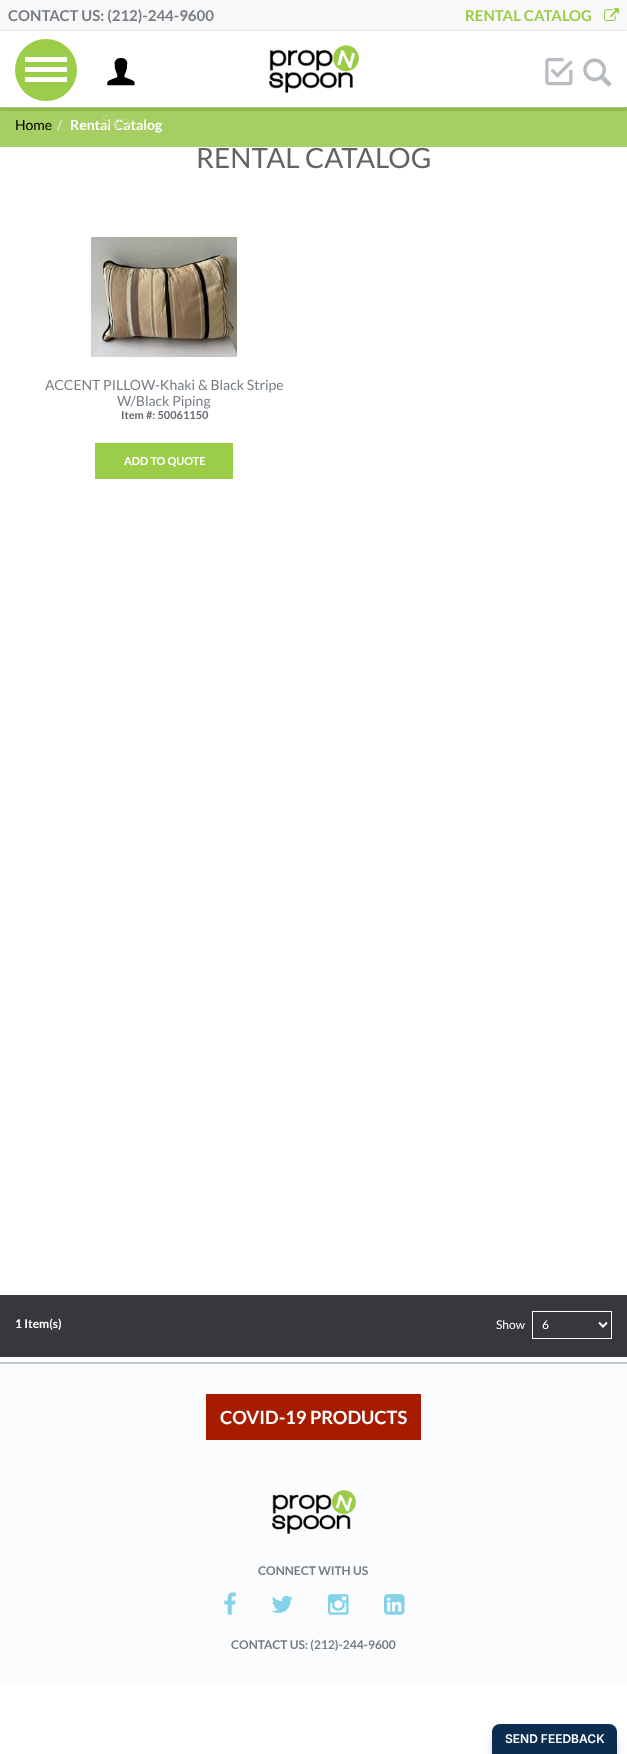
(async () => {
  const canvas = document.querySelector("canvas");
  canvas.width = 627;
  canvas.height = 1754;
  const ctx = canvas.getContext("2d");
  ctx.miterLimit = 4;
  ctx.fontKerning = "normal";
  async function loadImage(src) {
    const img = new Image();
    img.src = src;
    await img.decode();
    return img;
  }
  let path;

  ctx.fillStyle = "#ffffff";
  ctx.fillRect(0, 0, 627, 1754);
  ctx.fillStyle = "#a5ce63";
  ctx.fillRect(0, 111, 627, 36);
  ctx.fillStyle = "#f8f8f8";
  ctx.fillRect(0, 0, 627, 31);
  ctx.drawImage(await loadImage("img/1.png"), 604, 8, 15, 13);
  ctx.fillStyle = "#91ba50";
  ctx.fillRect(0, 107, 627, 4);
  ctx.fillStyle = "#cccccc";
  ctx.filter = "blur(1px)";
  ctx.beginPath();
  ctx.rect(0, 31, 627, 76);
  ctx.fill();
  ctx.filter = "none";
  ctx.fillStyle = "#ffffff";
  ctx.fillRect(0, 31, 627, 76);
  ctx.drawImage(await loadImage("img/2.png"), 269, 45, 90, 48);
  ctx.drawImage(await loadImage("img/3.png"), 545, 58, 28, 28);
  ctx.drawImage(await loadImage("img/4.png"), 583, 58, 29, 29);
  ctx.fillStyle = "#9bcd48";
  ctx.beginPath();
  ctx.arc(46, 70, 31, 0, Math.PI * 2);
  ctx.fill();
  for (const [x, y, w, h, color] of [
    [25, 77, 42, 5, "#ffffff"],
    [25, 67, 42, 5, "#ffffff"],
    [25, 57, 42, 5, "#ffffff"],
  ]) {
    ctx.fillStyle = color;
    ctx.fillRect(x, y, w, h);
  }
  ctx.drawImage(await loadImage("img/5.png"), 107, 58, 28, 28);
  ctx.drawImage(await loadImage("img/6.png"), 91, 237, 146, 120);
  ctx.fillStyle = "#9bcd48";
  ctx.fillRect(95, 443, 138, 36);
  ctx.fillStyle = "#36383c";
  ctx.fillRect(0, 1295, 627, 62);
  ctx.strokeStyle = "#ffffff";
  ctx.strokeRect(532.5, 1311.5, 79, 27);
  path = new Path2D("M599 1322.5L603 1326.5L607 1322.5");
  ctx.lineWidth = 2;
  ctx.stroke(path);
  for (const [x, y, w, h, color] of [
    [0, 1364, 627, 319, "#fafcfe"],
    [0, 1362, 627, 2, "#c6cbd1"],
    [206, 1394, 215, 46, "#a71c00"],
  ]) {
    ctx.fillStyle = color;
    ctx.fillRect(x, y, w, h);
  }
  ctx.drawImage(await loadImage("img/7.png"), 272, 1490, 84, 44);
  ctx.drawImage(await loadImage("img/8.png"), 224, 1592, 12, 23);
  ctx.drawImage(await loadImage("img/9.png"), 271, 1595, 22, 18);
  ctx.drawImage(await loadImage("img/10.png"), 328, 1594, 21, 21);
  ctx.drawImage(await loadImage("img/11.png"), 384, 1594, 21, 21);
  ctx.fillStyle = "rgba(0, 57, 128, 0.2)";
  ctx.filter = "blur(5px)";
  ctx.beginPath();
  ctx.roundRect(492, 1734, 125, 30, 8);
  ctx.fill();
  ctx.filter = "none";
  ctx.fillStyle = "#0a2d50";
  ctx.beginPath();
  ctx.roundRect(492, 1724, 125, 30, [8, 8, 0, 0]);
  ctx.fill();
  ctx.font = "bold 15px Lato";
  ctx.fillStyle = "#767d85";
  ctx.fillText("CONTACT US: (212)-244-9600", 8, 21);
  ctx.fillStyle = "#9bcd48";
  ctx.fillText("RENTAL CATALOG", 465, 21);
  ctx.font = "14px Lato";
  ctx.fillStyle = "#000000";
  ctx.fillText("Home", 15, 130);
  ctx.font = "bold 14px Lato";
  ctx.fillStyle = "#dddddd";
  ctx.fillText("/", 57, 130);
  ctx.fillStyle = "#ffffff";
  ctx.fillText("Rental Catalog", 70, 130);
  ctx.font = "15px Lato";
  ctx.fillStyle = "#bad987";
  ctx.fillText("Sign", 102, 126);
  ctx.font = "28px Lato";
  ctx.fillStyle = "#636363";
  ctx.fillText("RENTAL CATALOG", 196, 168);
  ctx.font = "14px Lato";
  ctx.fillStyle = "#767d85";
  ctx.fillText("ACCENT PILLOW-Khaki & Black Stripe", 45, 390);
  ctx.fillText("W/Black Piping", 117, 406);
  ctx.font = "bold 11px Lato";
  ctx.fillStyle = "#646a72";
  ctx.fillText("Item #: 50061150", 121, 419);
  ctx.fillStyle = "#ffffff";
  ctx.fillText("ADD TO QUOTE", 124, 465);
  ctx.font = "bold 12px Lato";
  ctx.fillText("1 Item(s)", 15, 1328);
  ctx.font = "12px Lato";
  ctx.fillText("Show", 496, 1329);
  ctx.fillText("6", 542, 1329);
  ctx.font = "bold 18.25px Lato";
  ctx.fillText("COVID-19 PRODUCTS", 220, 1424);
  ctx.font = "bold 12px Lato";
  ctx.fillStyle = "#767d85";
  ctx.fillText("CONNECT WITH US", 258, 1575);
  ctx.fillText("CONTACT US: (212)-244-9600", 231, 1649);
  ctx.font = "600 12px Inter";
  ctx.fillStyle = "#ffffff";
  ctx.fillText("SEND FEEDBACK", 505, 1743);
})();
